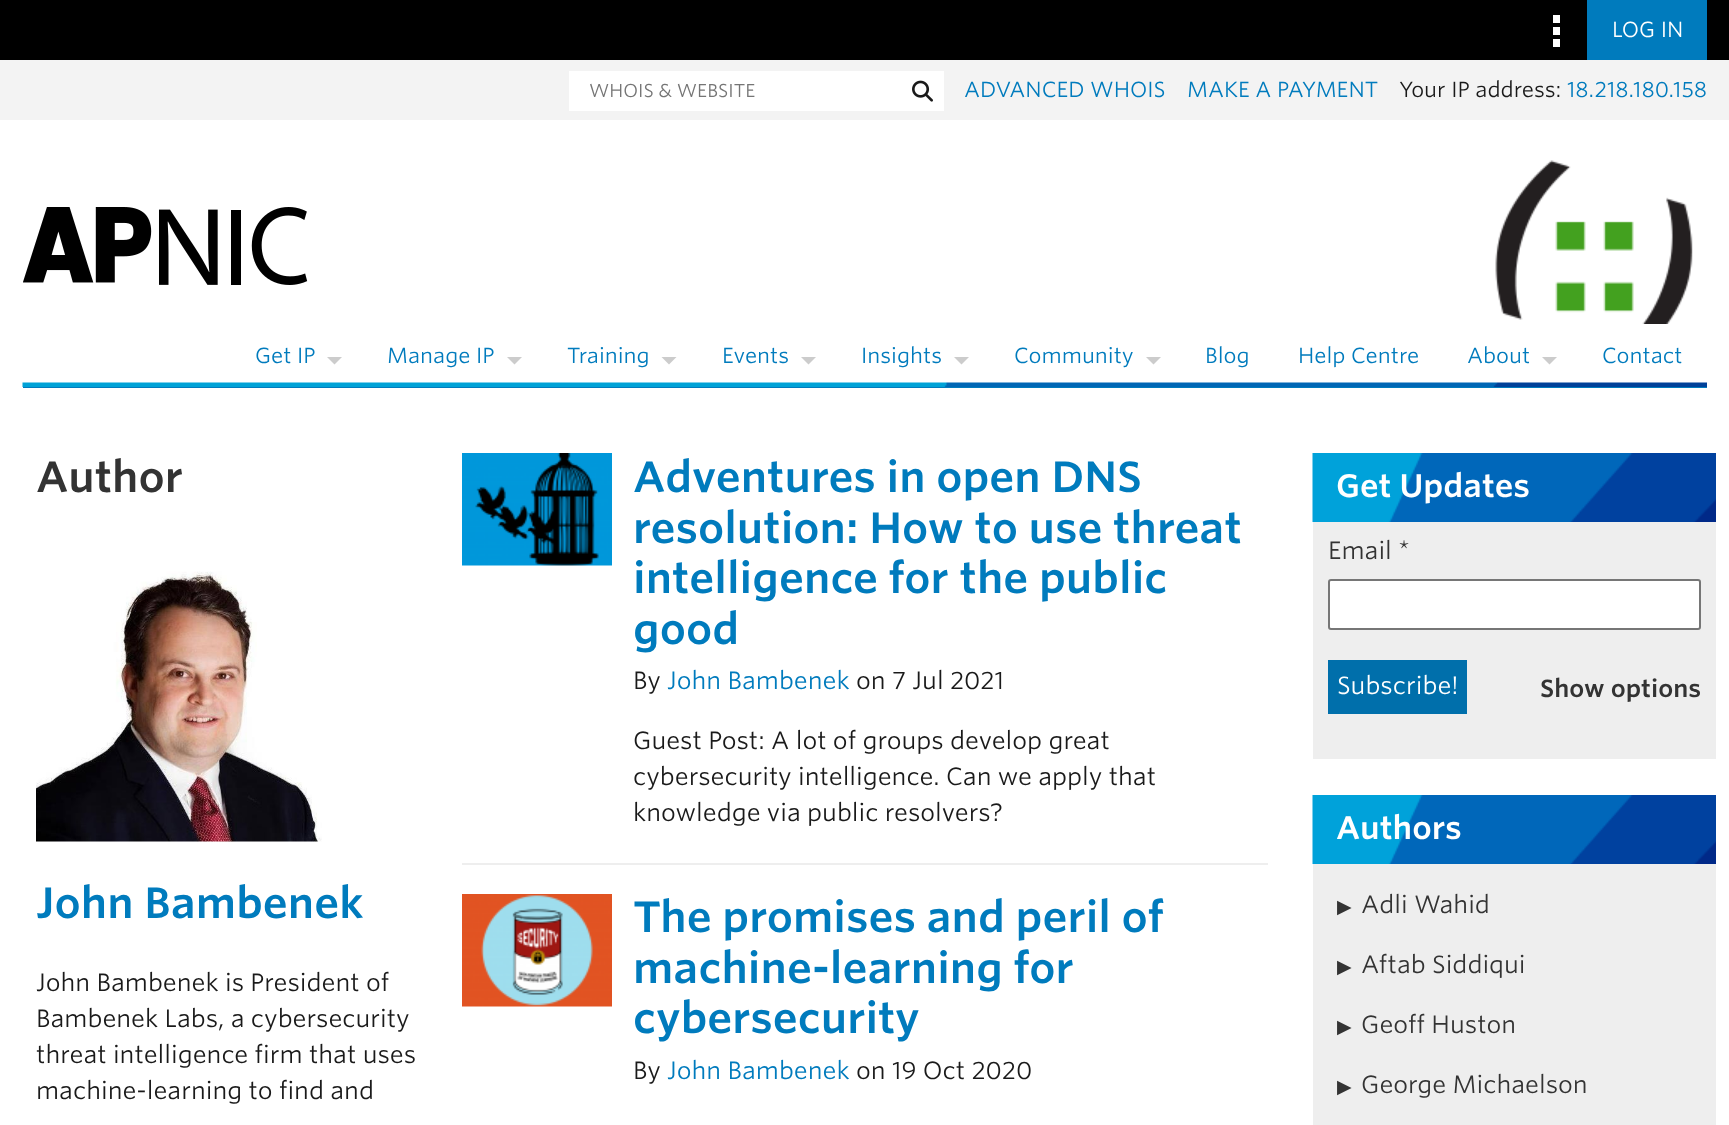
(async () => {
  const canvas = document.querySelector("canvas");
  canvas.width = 1729;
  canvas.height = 1125;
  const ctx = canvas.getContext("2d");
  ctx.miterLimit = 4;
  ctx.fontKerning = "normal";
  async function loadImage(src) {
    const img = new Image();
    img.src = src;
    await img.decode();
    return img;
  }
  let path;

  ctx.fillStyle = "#ffffff";
  ctx.fillRect(0, 0, 1729, 1125);
  for (const [x, y, w, h, color] of [
    [0, 0, 1729, 60, "#000000"],
    [1553, 15, 7, 8, "#ffffff"],
    [1553, 27, 7, 8, "#ffffff"],
    [1553, 39, 7, 8, "#ffffff"],
    [1587, 0, 120, 60, "#007bbd"],
    [0, 60, 1729, 60, "#f3f3f3"],
    [569, 71, 375, 40, "#ffffff"],
  ]) {
    ctx.fillStyle = color;
    ctx.fillRect(x, y, w, h);
  }
  ctx.drawImage(await loadImage("img/1.png"), 912, 80, 21, 22);
  ctx.drawImage(await loadImage("img/2.png"), 23, 207, 285, 78);
  ctx.drawImage(await loadImage("img/3.png"), 1495, 160, 198, 164);
  ctx.fillStyle = "#cccccc";
  path = new Path2D("M327 357H342L334.5 364.5Z");
  ctx.fill(path);
  path = new Path2D("M507 357H522L514.5 364.5Z");
  ctx.fill(path);
  path = new Path2D("M661.5 357H676.5L669 364.5Z");
  ctx.fill(path);
  path = new Path2D("M801 357H816L808.5 364.5Z");
  ctx.fill(path);
  path = new Path2D("M954 357H969L961.5 364.5Z");
  ctx.fill(path);
  path = new Path2D("M1146 357H1161L1153.5 364.5Z");
  ctx.fill(path);
  path = new Path2D("M1542 357H1557L1549.5 364.5Z");
  ctx.fill(path);
  ctx.fillStyle = "#007bbd";
  ctx.fillRect(23, 387, 1684, 1);
  ctx.drawImage(await loadImage("img/4.png"), 22, 382, 1685, 5);
  ctx.drawImage(await loadImage("img/5.png"), 36, 571, 286, 271);
  ctx.drawImage(await loadImage("img/6.png"), 462, 453, 150, 113);
  ctx.fillStyle = "#eeeeee";
  ctx.fillRect(462, 863, 806, 2);
  ctx.drawImage(await loadImage("img/7.png"), 462, 894, 150, 113);
  ctx.drawImage(await loadImage("img/8.png"), 1312, 453, 404, 69);
  ctx.fillRect(1313, 522, 403, 237);
  ctx.fillStyle = "#ffffff";
  ctx.beginPath();
  ctx.roundRect(1329, 580, 371, 49, 2);
  ctx.fill();
  ctx.strokeStyle = "#767676";
  ctx.lineWidth = 2;
  ctx.stroke();
  ctx.fillStyle = "#006fab";
  ctx.fillRect(1328, 660, 139, 54);
  ctx.drawImage(await loadImage("img/8.png"), 1312, 795, 404, 69);
  ctx.fillStyle = "#eeeeee";
  ctx.fillRect(1313, 864, 403, 261);
  ctx.font = "300 21px 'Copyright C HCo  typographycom'";
  ctx.fillStyle = "#ffffff";
  ctx.fillText("LOG IN", 1612, 37);
  ctx.font = "300 18px 'Copyright C HCo  typographycom'";
  ctx.fillStyle = "#757575";
  ctx.fillText("WHOIS & WEBSITE", 589, 97);
  ctx.font = "300 21px 'Copyright C HCo  typographycom'";
  ctx.fillStyle = "#007bbd";
  ctx.fillText("ADVANCED WHOIS", 964, 97);
  ctx.fillText("MAKE A PAYMENT", 1187, 97);
  ctx.fillStyle = "#1a1a1a";
  ctx.fillText("Your IP address:", 1399, 97);
  ctx.fillStyle = "#007bbd";
  for (const [text, x, y] of [
    ["18.218.180.158", 1567, 97],
    ["Get IP", 255, 363],
    ["Manage IP", 387, 363],
    ["Training", 567, 363],
    ["Events", 722, 363],
    ["Insights", 861, 363],
    ["Community", 1014, 363],
    ["Blog", 1205, 363],
    ["Help Centre", 1298, 363],
    ["About", 1467, 363],
    ["Contact", 1602, 363],
  ]) {
    ctx.fillText(text, x, y);
  }
  ctx.font = "42px 'Copyright C HCo  typographycom'";
  ctx.fillStyle = "#333333";
  ctx.fillText("Author", 36, 492);
  ctx.fillStyle = "#007bbd";
  ctx.fillText("John Bambenek", 36, 918);
  ctx.font = "300 24px 'Copyright C HCo  typographycom'";
  ctx.fillStyle = "#1a1a1a";
  for (const [text, x, y] of [
    ["John Bambenek is President of", 36, 991],
    ["Bambenek Labs, a cybersecurity", 36, 1027],
    ["threat intelligence firm that uses", 36, 1063],
    ["machine-learning to find and", 36, 1099],
  ]) {
    ctx.fillText(text, x, y);
  }
  ctx.font = "42px 'Copyright C HCo  typographycom'";
  ctx.fillStyle = "#007bbd";
  for (const [text, x, y] of [
    ["Adventures in open DNS", 633, 492],
    ["resolution: How to use threat", 633, 543],
    ["intelligence for the public", 633, 593],
    ["good", 633, 644],
  ]) {
    ctx.fillText(text, x, y);
  }
  ctx.font = "300 24px 'Copyright C HCo  typographycom'";
  ctx.fillStyle = "#1a1a1a";
  ctx.fillText("By", 633, 689);
  ctx.fillStyle = "#007bbd";
  ctx.fillText("John Bambenek", 667, 689);
  ctx.fillStyle = "#1a1a1a";
  for (const [text, x, y] of [
    ["on 7 Jul 2021", 856, 689],
    ["Guest Post: A lot of groups develop great", 633, 749],
    ["cybersecurity intelligence. Can we apply that", 633, 785],
    ["knowledge via public resolvers?", 633, 821],
  ]) {
    ctx.fillText(text, x, y);
  }
  ctx.font = "42px 'Copyright C HCo  typographycom'";
  ctx.fillStyle = "#007bbd";
  for (const [text, x, y] of [
    ["The promises and peril of", 633, 932],
    ["machine-learning for", 633, 983],
    ["cybersecurity", 633, 1033],
  ]) {
    ctx.fillText(text, x, y);
  }
  ctx.font = "300 24px 'Copyright C HCo  typographycom'";
  ctx.fillStyle = "#1a1a1a";
  ctx.fillText("By", 633, 1079);
  ctx.fillStyle = "#007bbd";
  ctx.fillText("John Bambenek", 667, 1079);
  ctx.fillStyle = "#1a1a1a";
  ctx.fillText("on 19 Oct 2020", 856, 1079);
  ctx.font = "31.25px 'Copyright C HCo  typographycom'";
  ctx.fillStyle = "#ffffff";
  ctx.fillText("Get Updates", 1336, 497);
  ctx.font = "300 24px 'Copyright C HCo  typographycom'";
  ctx.fillStyle = "#333333";
  ctx.fillText("Email *", 1328, 559);
  ctx.fillStyle = "#ffffff";
  ctx.fillText("Subscribe!", 1337, 694);
  ctx.font = "24px 'Copyright C HCo  typographycom'";
  ctx.fillStyle = "#333333";
  ctx.fillText("Show options", 1540, 697);
  ctx.font = "31.25px 'Copyright C HCo  typographycom'";
  ctx.fillStyle = "#ffffff";
  ctx.fillText("Authors", 1336, 839);
  ctx.font = "19px DejaVu Sans";
  ctx.fillStyle = "#333333";
  ctx.fillText("▶", 1337, 913);
  ctx.font = "300 24px 'Copyright C HCo  typographycom'";
  ctx.fillText("Adli Wahid", 1361, 913);
  ctx.font = "19px DejaVu Sans";
  ctx.fillText("▶", 1337, 973);
  ctx.font = "300 24px 'Copyright C HCo  typographycom'";
  ctx.fillText("Aftab Siddiqui", 1361, 973);
  ctx.font = "19px DejaVu Sans";
  ctx.fillText("▶", 1337, 1033);
  ctx.font = "300 24px 'Copyright C HCo  typographycom'";
  ctx.fillText("Geoff Huston", 1361, 1033);
  ctx.font = "19px DejaVu Sans";
  ctx.fillText("▶", 1337, 1093);
  ctx.font = "300 24px 'Copyright C HCo  typographycom'";
  ctx.fillText("George Michaelson", 1361, 1093);
})();
